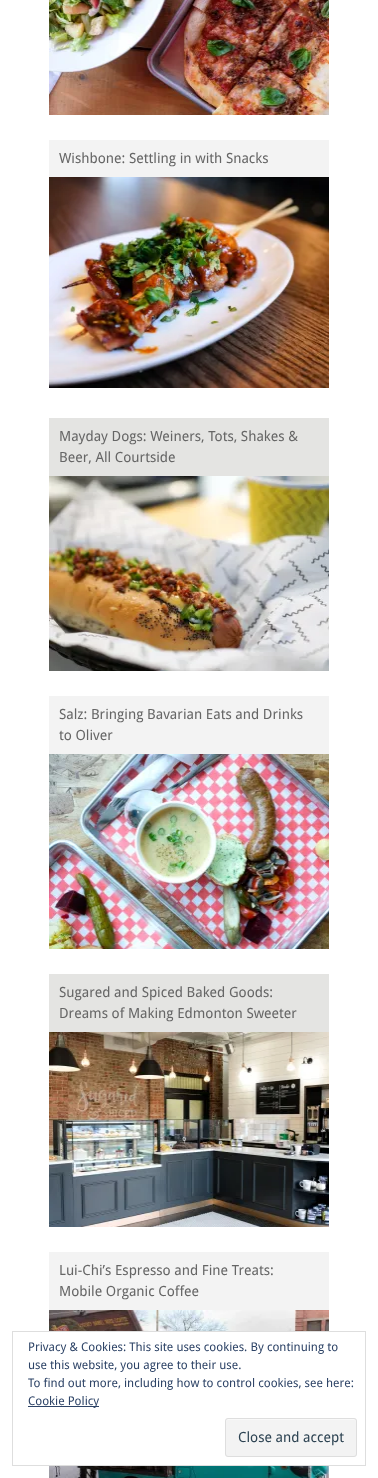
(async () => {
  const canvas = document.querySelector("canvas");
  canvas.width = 378;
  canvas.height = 1478;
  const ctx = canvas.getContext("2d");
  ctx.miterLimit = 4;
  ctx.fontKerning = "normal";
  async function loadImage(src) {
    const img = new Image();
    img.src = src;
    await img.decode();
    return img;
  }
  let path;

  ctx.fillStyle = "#ffffff";
  ctx.fillRect(0, 0, 378, 1478);
  ctx.drawImage(await loadImage("img/1.png"), 49, 0, 280, 115);
  ctx.fillStyle = "#f3f3f3";
  ctx.fillRect(49, 140, 280, 37);
  ctx.drawImage(await loadImage("img/2.png"), 49, 177, 280, 211);
  ctx.fillStyle = "#e4e4e2";
  ctx.fillRect(49, 418, 280, 58);
  ctx.drawImage(await loadImage("img/3.png"), 49, 476, 280, 195);
  ctx.fillStyle = "#f3f3f3";
  ctx.fillRect(49, 696, 280, 58);
  ctx.drawImage(await loadImage("img/4.png"), 49, 754, 280, 195);
  ctx.fillStyle = "#e4e4e2";
  ctx.fillRect(49, 974, 280, 58);
  ctx.drawImage(await loadImage("img/5.png"), 49, 1032, 280, 195);
  ctx.fillStyle = "#f3f3f3";
  ctx.fillRect(49, 1252, 280, 58);
  ctx.drawImage(await loadImage("img/6.png"), 49, 1310, 280, 168);
  ctx.fillStyle = "#ffffff";
  ctx.fillRect(49, 1332, 280, 133);
  ctx.strokeStyle = "#dedede";
  ctx.strokeRect(12.5, 1331.5, 353, 134);
  ctx.fillStyle = "#2e4467";
  ctx.fillRect(28, 1406, 71, 1);
  ctx.fillStyle = "#f3f3f3";
  ctx.beginPath();
  ctx.roundRect(225, 1418, 132, 39, 3);
  ctx.fill();
  ctx.fillStyle = "#f9f9f9";
  path = new Path2D("M228 1420H354C355 1420 356 1421 356 1422C356 1421 356 1419 354 1419H228C226 1419 226 1421 226 1422C226 1421 227 1420 228 1420Z");
  ctx.fill(path);
  ctx.beginPath();
  ctx.roundRect(225.5, 1418.5, 131, 38, 2.5);
  ctx.stroke();
  ctx.font = "14px Droid Sans";
  ctx.fillStyle = "#666666";
  for (const [text, x, y] of [
    ["Wishbone: Settling in with Snacks", 59, 163],
    ["Mayday Dogs: Weiners, Tots, Shakes &", 59, 441],
    ["Beer, All Courtside", 59, 462],
    ["Salz: Bringing Bavarian Eats and Drinks", 59, 719],
    ["to Oliver", 59, 740],
    ["Sugared and Spiced Baked Goods:", 59, 997],
    ["Dreams of Making Edmonton Sweeter", 59, 1018],
    ["Lui-Chi’s Espresso and Fine Treats:", 59, 1275],
    ["Mobile Organic Coffee", 59, 1296],
  ]) {
    ctx.fillText(text, x, y);
  }
  ctx.font = "12px Droid Sans";
  ctx.fillStyle = "#2e4467";
  for (const [text, x, y] of [
    ["Privacy & Cookies: This site uses cookies. By continuing to", 28, 1351],
    ["use this website, you agree to their use.", 28, 1369],
    ["To find out more, including how to control cookies, see here:", 28, 1387],
    ["Cookie Policy", 28, 1405],
  ]) {
    ctx.fillText(text, x, y);
  }
  ctx.font = "14px Droid Sans";
  ctx.fillStyle = "#2e4453";
  ctx.fillText("Close and accept", 238, 1442);
})();
